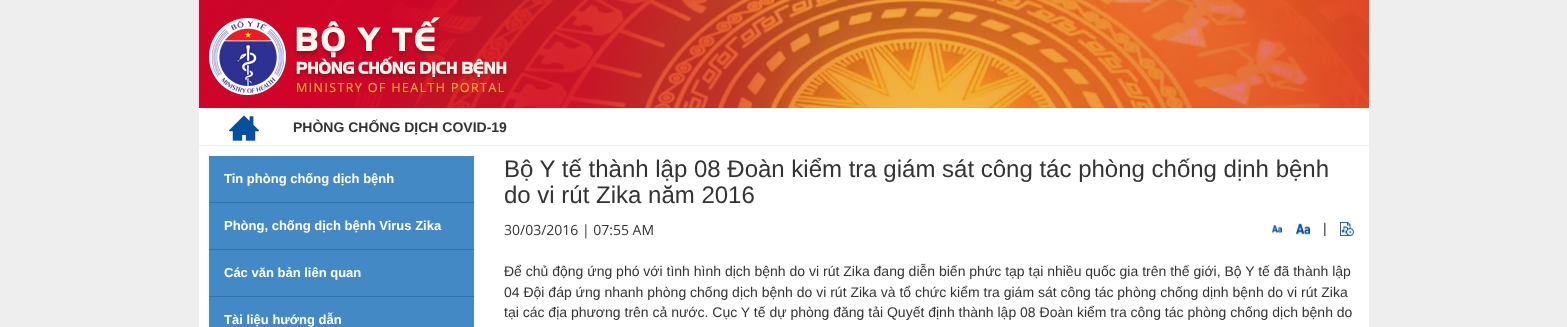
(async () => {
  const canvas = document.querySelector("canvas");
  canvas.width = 1567;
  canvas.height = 327;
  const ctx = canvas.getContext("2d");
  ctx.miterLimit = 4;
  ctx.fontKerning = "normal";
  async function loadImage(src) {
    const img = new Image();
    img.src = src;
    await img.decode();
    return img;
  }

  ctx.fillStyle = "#eeeeee";
  ctx.fillRect(0, 0, 1567, 327);
  ctx.fillStyle = "#d10229";
  ctx.fillRect(199, 0, 7, 108);
  ctx.drawImage(await loadImage("img/1.png"), 206, 0, 1163, 108);
  ctx.drawImage(await loadImage("img/2.png"), 209, 17, 299, 78);
  ctx.fillStyle = "#ffffff";
  ctx.fillRect(199, 108, 1170, 37);
  ctx.drawImage(await loadImage("img/3.png"), 229, 115, 30, 26);
  for (const [x, y, w, h, color] of [
    [199, 146, 1170, 181, "#ffffff"],
    [209, 202, 265, 1, "#2974b5"],
    [209, 156, 265, 46, "#4389c6"],
    [209, 249, 265, 1, "#2974b5"],
    [209, 203, 265, 46, "#4389c6"],
    [209, 296, 265, 1, "#2974b5"],
    [209, 250, 265, 46, "#4389c6"],
    [209, 297, 265, 30, "#4389c6"],
  ]) {
    ctx.fillStyle = color;
    ctx.fillRect(x, y, w, h);
  }
  ctx.drawImage(await loadImage("img/4.png"), 1272, 224, 10, 10);
  ctx.drawImage(await loadImage("img/5.png"), 1296, 223, 14, 12);
  ctx.drawImage(await loadImage("img/6.png"), 1340, 222, 14, 14);
  ctx.font = "bold 14px Liberation Sans";
  ctx.fillStyle = "#333333";
  ctx.fillText("PHÒNG CHỐNG DỊCH COVID-19", 293, 132);
  ctx.font = "bold 13px Liberation Sans";
  ctx.fillStyle = "#ffffff";
  for (const [text, x, y] of [
    ["Tin phòng chống dịch bệnh", 224, 183],
    ["Phòng, chống dịch bệnh Virus Zika", 224, 230],
    ["Các văn bản liên quan", 224, 277],
    ["Tài liệu hướng dẫn", 224, 324],
  ]) {
    ctx.fillText(text, x, y);
  }
  ctx.font = "24px Liberation Sans";
  ctx.fillStyle = "#333333";
  ctx.fillText("Bộ Y tế thành lập 08 Đoàn kiểm tra giám sát công tác phòng chống dịnh bệnh", 504, 177);
  ctx.fillText("do vi rút Zika năm 2016", 504, 203);
  ctx.font = "14px Open Sans";
  ctx.fillText("30/03/2016 | 07:55 AM", 504, 235);
  ctx.font = "14px Liberation Sans";
  for (const [text, x, y] of [
    ["|", 1323, 233],
    ["Để chủ động ứng phó với tình hình dịch bệnh do vi rút Zika đang diễn biến phức tạp tại nhiều quốc gia trên thế giới, Bộ Y tế đã thành lập", 504, 276],
    ["04 Đội đáp ứng nhanh phòng chống dịch bệnh do vi rút Zika và tổ chức kiểm tra giám sát công tác phòng chống dịnh bệnh do vi rút Zika", 504, 297],
    ["tại các địa phương trên cả nước. Cục Y tế dự phòng đăng tải Quyết định thành lập 08 Đoàn kiểm tra công tác phòng chống dịch bệnh do", 504, 317],
  ]) {
    ctx.fillText(text, x, y);
  }
})();
